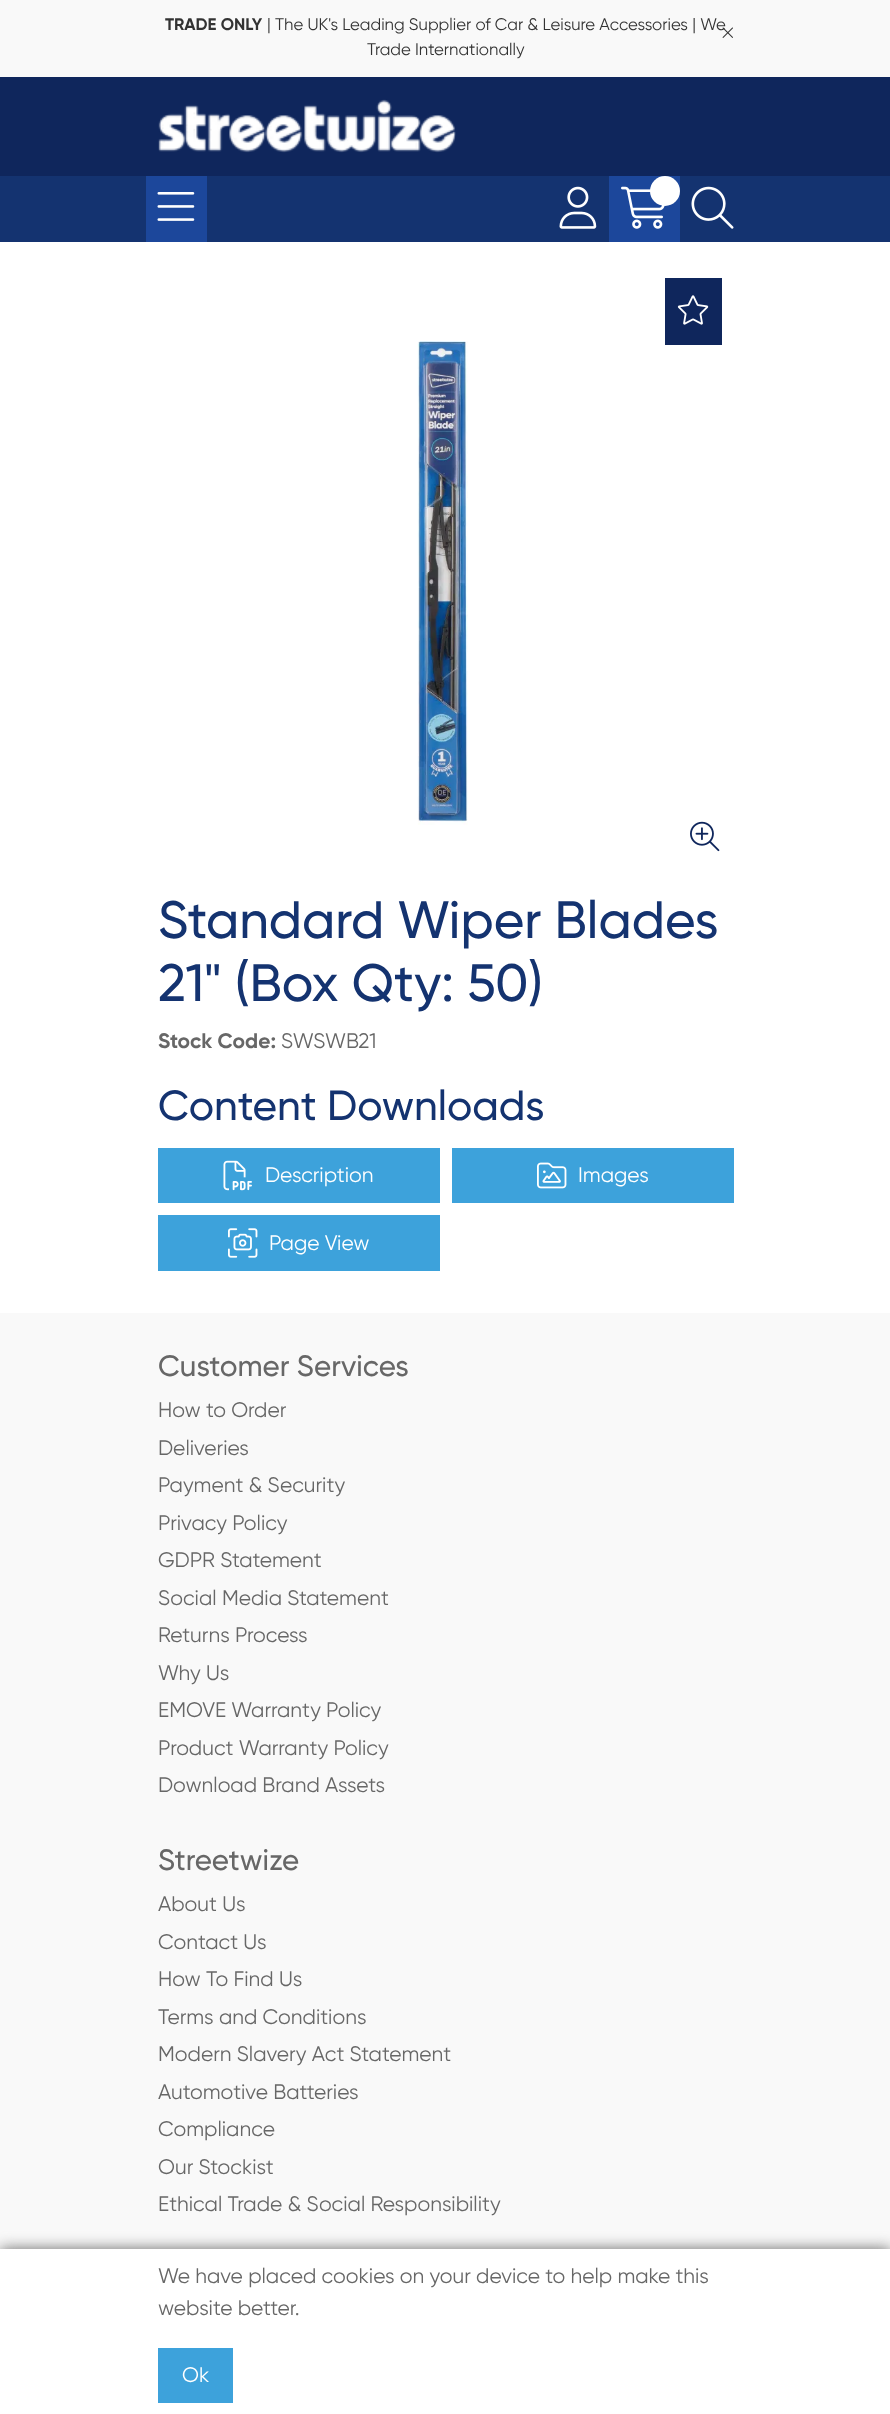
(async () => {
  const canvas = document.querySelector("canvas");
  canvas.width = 890;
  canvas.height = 2414;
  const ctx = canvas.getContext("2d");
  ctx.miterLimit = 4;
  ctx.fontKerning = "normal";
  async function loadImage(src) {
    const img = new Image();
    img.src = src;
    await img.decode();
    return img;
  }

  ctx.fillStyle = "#ffffff";
  ctx.fillRect(0, 0, 890, 2414);
  ctx.fillStyle = "#f9f9f9";
  ctx.fillRect(0, 0, 890, 77);
  ctx.fillStyle = "#0f265c";
  ctx.fillRect(0, 77, 890, 99);
  ctx.drawImage(await loadImage("img/2.png"), 158, 99, 298, 54);
  ctx.fillStyle = "#143370";
  ctx.fillRect(0, 176, 890, 66);
  ctx.fillStyle = "#1c479b";
  ctx.fillRect(146, 176, 61, 66);
  ctx.drawImage(await loadImage("img/3.png"), 157, 192, 38, 29);
  ctx.drawImage(await loadImage("img/4.png"), 559, 186, 38, 43);
  ctx.fillRect(609, 176, 71, 66);
  ctx.drawImage(await loadImage("img/5.png"), 621, 186, 44, 43);
  ctx.fillStyle = "#ffffff";
  ctx.beginPath();
  ctx.arc(665, 191, 15, 0, Math.PI * 2);
  ctx.fill();
  ctx.drawImage(await loadImage("img/6.png"), 691, 186, 43, 43);
  ctx.fillStyle = "#0f265c";
  ctx.fillRect(665, 278, 57, 67);
  ctx.drawImage(await loadImage("img/7.png"), 677, 295, 32, 30);
  ctx.drawImage(await loadImage("img/8.png"), 417, 341, 51, 484);
  ctx.drawImage(await loadImage("img/9.png"), 690, 821, 30, 31);
  ctx.fillStyle = "#3da2db";
  ctx.fillRect(158, 1148, 282, 55);
  ctx.drawImage(await loadImage("img/10.png"), 223, 1160, 29, 31);
  ctx.fillRect(452, 1148, 282, 55);
  ctx.drawImage(await loadImage("img/11.png"), 537, 1162, 30, 27);
  ctx.fillRect(158, 1215, 282, 56);
  ctx.drawImage(await loadImage("img/12.png"), 228, 1228, 30, 30);
  ctx.fillStyle = "#f9f9f9";
  ctx.fillRect(0, 1313, 890, 936);
  ctx.fillStyle = "#676767";
  ctx.filter = "blur(7.5px)";
  ctx.beginPath();
  ctx.rect(0, 2249, 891, 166);
  ctx.fill();
  ctx.filter = "none";
  ctx.fillStyle = "#ffffff";
  ctx.fillRect(0, 2249, 890, 165);
  ctx.fillStyle = "#3da2db";
  ctx.fillRect(158, 2348, 75, 55);
  ctx.font = "bold 16.8px Gilroy";
  ctx.fillStyle = "#333333";
  ctx.fillText("TRADE ONLY", 165, 30);
  ctx.font = "16.8px Gilroy";
  ctx.fillText("| The UK's Leading Supplier of Car & Leisure Accessories | We", 267, 30);
  ctx.fillText("Trade Internationally", 367, 55);
  ctx.drawImage(await loadImage("img/1.png"), 722, 27, 11, 11);
  ctx.font = "500 52.5px Gilroy";
  ctx.fillStyle = "#143370";
  ctx.fillText("Standard Wiper Blades", 158, 938);
  ctx.fillText("21\" (Box Qty: 50)", 158, 1001);
  ctx.font = "bold 21px Gilroy";
  ctx.fillStyle = "#676767";
  ctx.fillText("Stock Code:", 158, 1048);
  ctx.font = "21px Gilroy";
  ctx.fillText("SWSWB21", 281, 1048);
  ctx.font = "500 42px Gilroy";
  ctx.fillStyle = "#143370";
  ctx.fillText("Content Downloads", 158, 1120);
  ctx.font = "21px Gilroy";
  ctx.fillStyle = "#ffffff";
  for (const [text, x, y] of [
    ["Description", 265, 1182],
    ["Images", 578, 1182],
    ["Page View", 269, 1250],
  ]) {
    ctx.fillText(text, x, y);
  }
  ctx.font = "500 29.5px Gilroy";
  ctx.fillStyle = "#676767";
  ctx.fillText("Customer Services", 158, 1376);
  ctx.font = "21px Gilroy";
  for (const [text, x, y] of [
    ["How to Order", 158, 1417],
    ["Deliveries", 158, 1455],
    ["Payment & Security", 158, 1492],
    ["Privacy Policy", 158, 1530],
    ["GDPR Statement", 158, 1567],
    ["Social Media Statement", 158, 1605],
    ["Returns Process", 158, 1642],
    ["Why Us", 158, 1680],
    ["EMOVE Warranty Policy", 158, 1717],
    ["Product Warranty Policy", 158, 1755],
    ["Download Brand Assets", 158, 1792],
  ]) {
    ctx.fillText(text, x, y);
  }
  ctx.font = "500 29.5px Gilroy";
  ctx.fillText("Streetwize", 158, 1870);
  ctx.font = "21px Gilroy";
  for (const [text, x, y] of [
    ["About Us", 158, 1911],
    ["Contact Us", 158, 1949],
    ["How To Find Us", 158, 1986],
    ["Terms and Conditions", 158, 2024],
    ["Modern Slavery Act Statement", 158, 2061],
    ["Automotive Batteries", 158, 2099],
    ["Compliance", 158, 2136],
    ["Our Stockist", 158, 2174],
    ["Ethical Trade & Social Responsibility", 158, 2211],
    ["We have placed cookies on your device to help make this", 158, 2283],
    ["website better.", 158, 2315],
  ]) {
    ctx.fillText(text, x, y);
  }
  ctx.fillStyle = "#ffffff";
  ctx.fillText("Ok", 182, 2382);
})();
